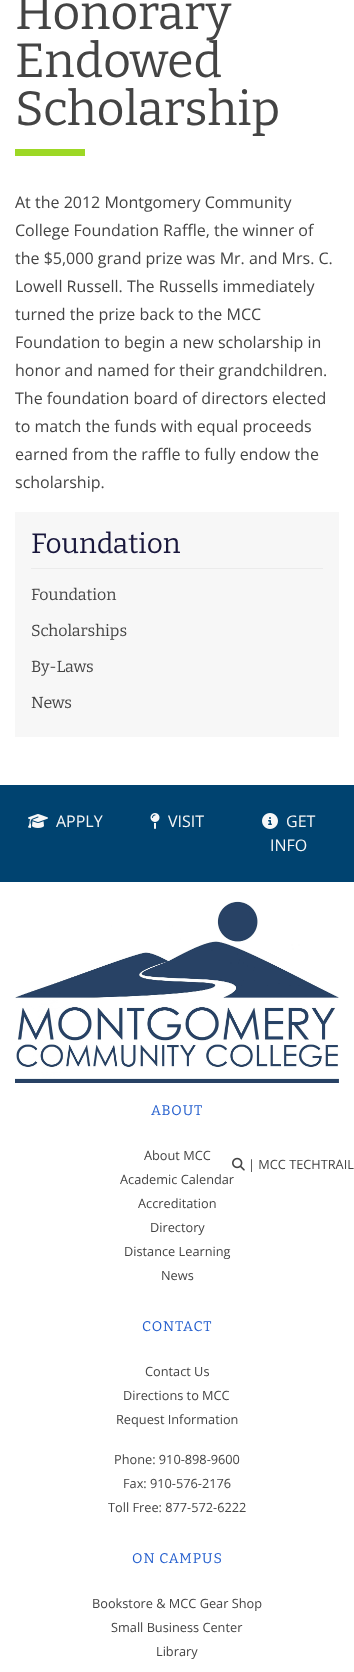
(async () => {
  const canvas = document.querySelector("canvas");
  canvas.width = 354;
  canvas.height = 1672;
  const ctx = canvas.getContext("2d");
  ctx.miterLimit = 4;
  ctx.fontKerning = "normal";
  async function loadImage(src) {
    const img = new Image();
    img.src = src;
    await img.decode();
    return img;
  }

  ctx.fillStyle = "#ffffff";
  ctx.fillRect(0, 0, 354, 1672);
  for (const [x, y, w, h, color] of [
    [15, 149, 70, 7, "#9dd825"],
    [15, 512, 324, 225, "#f7f7f7"],
    [31, 568, 292, 1, "#ebebeb"],
    [0, 785, 354, 97, "#004370"],
  ]) {
    ctx.fillStyle = color;
    ctx.fillRect(x, y, w, h);
  }
  ctx.drawImage(await loadImage("img/1.png"), 28, 814, 20, 14);
  ctx.drawImage(await loadImage("img/2.png"), 150, 813, 10, 16);
  ctx.drawImage(await loadImage("img/3.png"), 262, 813, 16, 16);
  ctx.drawImage(await loadImage("img/4.png"), 15, 901, 324, 182);
  ctx.drawImage(await loadImage("img/5.png"), 232, 1157, 13, 14);
  ctx.font = "48px Bitter";
  ctx.fillStyle = "#444444";
  for (const [text, x, y] of [
    ["Honorary", 15, 29],
    ["Endowed", 15, 77],
    ["Scholarship", 15, 125],
  ]) {
    ctx.fillText(text, x, y);
  }
  ctx.font = "16px Open Sans";
  for (const [text, x, y] of [
    ["At the 2012 Montgomery Community", 15, 208],
    ["College Foundation Raffle, the winner of", 15, 236],
    ["the $5,000 grand prize was Mr. and Mrs. C.", 15, 264],
    ["Lowell Russell. The Russells immediately", 15, 292],
    ["turned the prize back to the MCC", 15, 320],
    ["Foundation to begin a new scholarship in", 15, 348],
    ["honor and named for their grandchildren.", 15, 376],
    ["The foundation board of directors elected", 15, 404],
    ["to match the funds with equal proceeds", 15, 432],
    ["earned from the raffle to fully endow the", 15, 460],
    ["scholarship.", 15, 488],
  ]) {
    ctx.fillText(text, x, y);
  }
  ctx.font = "28px Bitter";
  ctx.fillStyle = "#19173c";
  ctx.fillText("Foundation", 31, 553);
  ctx.font = "16px Bitter";
  ctx.fillStyle = "#444444";
  for (const [text, x, y] of [
    ["Foundation", 31, 600],
    ["Scholarships", 31, 636],
    ["By-Laws", 31, 672],
    ["News", 31, 708],
  ]) {
    ctx.fillText(text, x, y);
  }
  ctx.font = "16px Open Sans";
  ctx.fillStyle = "#f7f7f7";
  for (const [text, x, y] of [
    ["APPLY", 56, 827],
    ["VISIT", 168, 827],
    ["GET", 286, 827],
    ["INFO", 270, 851],
  ]) {
    ctx.fillText(text, x, y);
  }
  ctx.letterSpacing = "1px";
  ctx.font = "14px Bitter";
  ctx.fillStyle = "#225dcd";
  ctx.fillText("ABOUT", 151, 1115);
  ctx.letterSpacing = "0px";
  ctx.font = "12.75px Open Sans";
  ctx.fillStyle = "#444444";
  for (const [text, x, y] of [
    ["About MCC", 144, 1160],
    ["Academic Calendar", 120, 1184],
    ["Accreditation", 138, 1208],
    ["Directory", 150, 1232],
    ["Distance Learning", 124, 1256],
    ["News", 161, 1280],
    ["| MCC TECHTRAIL", 248, 1169],
  ]) {
    ctx.fillText(text, x, y);
  }
  ctx.letterSpacing = "1px";
  ctx.font = "14px Bitter";
  ctx.fillStyle = "#225dcd";
  ctx.fillText("CONTACT", 142, 1331);
  ctx.letterSpacing = "0px";
  ctx.font = "12.75px Open Sans";
  ctx.fillStyle = "#444444";
  for (const [text, x, y] of [
    ["Contact Us", 145, 1376],
    ["Directions to MCC", 123, 1400],
    ["Request Information", 116, 1424],
    ["Phone: 910-898-9600", 114, 1464],
    ["Fax: 910-576-2176", 123, 1488],
    ["Toll Free: 877-572-6222", 108, 1512],
  ]) {
    ctx.fillText(text, x, y);
  }
  ctx.letterSpacing = "1px";
  ctx.font = "14px Bitter";
  ctx.fillStyle = "#225dcd";
  ctx.fillText("ON CAMPUS", 132, 1563);
  ctx.letterSpacing = "0px";
  ctx.font = "12.75px Open Sans";
  ctx.fillStyle = "#444444";
  for (const [text, x, y] of [
    ["Bookstore & MCC Gear Shop", 92, 1608],
    ["Small Business Center", 111, 1632],
    ["Library", 156, 1656],
  ]) {
    ctx.fillText(text, x, y);
  }
})();
